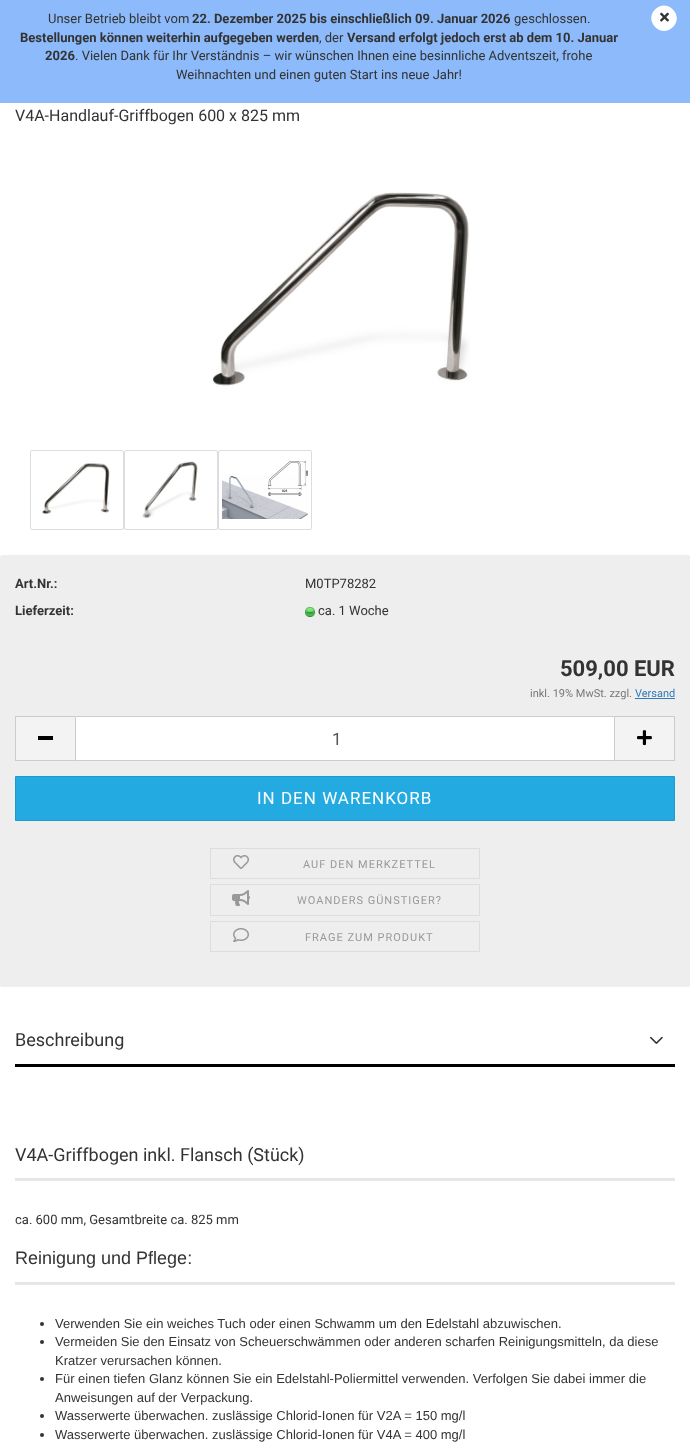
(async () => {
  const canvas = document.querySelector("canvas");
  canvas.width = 690;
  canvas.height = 1453;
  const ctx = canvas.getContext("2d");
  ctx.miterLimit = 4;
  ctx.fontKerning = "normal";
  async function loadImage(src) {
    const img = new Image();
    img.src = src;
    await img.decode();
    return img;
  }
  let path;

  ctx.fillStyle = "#ffffff";
  ctx.fillRect(0, 0, 690, 1453);
  ctx.fillStyle = "#8cbafa";
  ctx.fillRect(0, 0, 690, 103);
  ctx.fillStyle = "#ffffff";
  path = new Path2D("M655 9.5C667-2.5 684.5 15.5 673 27C661 39 643.5 21 655 9.5Z");
  ctx.fill(path);
  ctx.drawImage(await loadImage("img/1.png"), 660, 12, 9, 10);
  ctx.drawImage(await loadImage("img/2.png"), 212, 192, 258, 194);
  ctx.beginPath();
  ctx.roundRect(30.5, 450.5, 93, 79, 1.5);
  ctx.strokeStyle = "#dddddd";
  ctx.stroke();
  ctx.drawImage(await loadImage("img/3.png"), 42, 463, 68, 51);
  ctx.beginPath();
  ctx.roundRect(124.5, 450.5, 93, 79, 1.5);
  ctx.stroke();
  ctx.drawImage(await loadImage("img/4.png"), 141, 461, 57, 58);
  ctx.beginPath();
  ctx.roundRect(218.5, 450.5, 93, 79, 1.5);
  ctx.stroke();
  ctx.drawImage(await loadImage("img/5.png"), 222, 461, 86, 58);
  ctx.fillStyle = "#eeeeee";
  ctx.beginPath();
  ctx.roundRect(0, 555, 690, 432, 2);
  ctx.fill();
  ctx.drawImage(await loadImage("img/6.png"), 305, 607, 10, 10);
  for (const [x, y, w, h, color] of [
    [635, 698, 40, 1, "#337ab7"],
    [16, 717, 59, 43, "#f3f3f3"],
    [15, 716, 60, 1, "#cccccc"],
    [15, 760, 60, 1, "#cccccc"],
    [15, 716, 1, 45, "#cccccc"],
    [38, 736, 15, 4, "#000000"],
  ]) {
    ctx.fillStyle = color;
    ctx.fillRect(x, y, w, h);
  }
  ctx.fillStyle = "#ffffff";
  ctx.beginPath();
  ctx.rect(75.5, 716.5, 539, 44);
  ctx.fill();
  ctx.strokeStyle = "#cccccc";
  ctx.stroke();
  for (const [x, y, w, h, color] of [
    [615, 717, 59, 43, "#f3f3f3"],
    [615, 716, 60, 1, "#cccccc"],
    [674, 716, 1, 45, "#cccccc"],
    [615, 760, 60, 1, "#cccccc"],
  ]) {
    ctx.fillStyle = color;
    ctx.fillRect(x, y, w, h);
  }
  ctx.drawImage(await loadImage("img/7.png"), 637, 730, 15, 16);
  ctx.fillStyle = "#23aae1";
  ctx.beginPath();
  ctx.rect(15.5, 776.5, 659, 44);
  ctx.fill();
  ctx.strokeStyle = "#1c9bce";
  ctx.stroke();
  ctx.strokeStyle = "#dddddd";
  ctx.strokeRect(210.5, 848.5, 269, 30);
  ctx.drawImage(await loadImage("img/8.png"), 233, 855, 16, 14);
  ctx.strokeRect(210.5, 884.5, 269, 31);
  ctx.drawImage(await loadImage("img/9.png"), 232, 890, 18, 16);
  ctx.strokeRect(210.5, 921.5, 269, 30);
  ctx.drawImage(await loadImage("img/10.png"), 233, 928, 16, 14);
  ctx.fillStyle = "#000000";
  ctx.fillRect(15, 1064, 660, 3);
  ctx.drawImage(await loadImage("img/11.png"), 650, 1036, 13, 8);
  ctx.fillStyle = "#e7e7e7";
  ctx.fillRect(15, 1178, 660, 3);
  ctx.fillRect(15, 1282, 660, 3);
  ctx.fillStyle = "#333333";
  ctx.beginPath();
  ctx.arc(42, 1324, 2, 0, Math.PI * 2);
  ctx.fill();
  ctx.beginPath();
  ctx.arc(42, 1342, 2, 0, Math.PI * 2);
  ctx.fill();
  ctx.beginPath();
  ctx.arc(42, 1379, 2, 0, Math.PI * 2);
  ctx.fill();
  ctx.beginPath();
  ctx.arc(42, 1416, 2, 0, Math.PI * 2);
  ctx.fill();
  ctx.beginPath();
  ctx.arc(42, 1435, 2, 0, Math.PI * 2);
  ctx.fill();
  ctx.font = "13px Roboto";
  ctx.fillText("Unser Betrieb bleibt vom", 48, 23);
  ctx.font = "bold 13px Roboto";
  ctx.fillText("22. Dezember 2025 bis einschließlich 09. Januar 2026", 192, 23);
  ctx.font = "13px Roboto";
  ctx.fillText("geschlossen.", 514, 23);
  ctx.font = "bold 13px Roboto";
  ctx.fillText("Bestellungen können weiterhin aufgegeben werden", 20, 42);
  ctx.font = "13px Roboto";
  ctx.fillText(", der", 319, 42);
  ctx.font = "bold 13px Roboto";
  ctx.fillText("Versand erfolgt jedoch erst ab dem 10. Januar", 347, 42);
  ctx.fillText("2026", 45, 60);
  ctx.font = "13px Roboto";
  ctx.fillText(". Vielen Dank für Ihr Verständnis – wir wünschen Ihnen eine besinnliche Adventszeit, frohe", 75, 60);
  ctx.fillText("Weihnachten und einen guten Start ins neue Jahr!", 176, 79);
  ctx.font = "16px Roboto";
  ctx.fillText("V4A-Handlauf-Griffbogen 600 x 825 mm", 15, 121);
  ctx.font = "bold 13px Roboto";
  ctx.fillText("Art.Nr.:", 15, 588);
  ctx.font = "13px Roboto";
  ctx.fillText("M0TP78282", 305, 588);
  ctx.font = "bold 13px Roboto";
  ctx.fillText("Lieferzeit:", 15, 615);
  ctx.font = "13px Roboto";
  ctx.fillText("ca. 1 Woche", 318, 615);
  ctx.font = "bold 22px Roboto";
  ctx.fillText("509,00 EUR", 560, 676);
  ctx.font = "11px Roboto";
  ctx.fillStyle = "#777777";
  ctx.fillText("inkl. 19% MwSt. zzgl.", 530, 697);
  ctx.fillStyle = "#337ab7";
  ctx.fillText("Versand", 635, 697);
  ctx.font = "17px Roboto";
  ctx.fillStyle = "#555555";
  ctx.fillText("1", 332, 745);
  ctx.letterSpacing = "1px";
  ctx.fillStyle = "#ffffff";
  ctx.fillText("IN DEN WARENKORB", 257, 804);
  ctx.font = "11px Roboto";
  ctx.fillStyle = "#999999";
  for (const [text, x, y] of [
    ["AUF DEN MERKZETTEL", 303, 868],
    ["WOANDERS GÜNSTIGER?", 297, 904],
    ["FRAGE ZUM PRODUKT", 305, 941],
  ]) {
    ctx.fillText(text, x, y);
  }
  ctx.letterSpacing = "0px";
  ctx.font = "18px Roboto";
  ctx.fillStyle = "#333333";
  ctx.fillText("Beschreibung", 15, 1046);
  ctx.fillText("V4A-Griffbogen inkl. Flansch (Stück)", 15, 1161);
  ctx.font = "13px Roboto";
  ctx.fillText("ca. 600 mm, Gesamtbreite ca. 825 mm", 15, 1224);
  ctx.font = "18px Liberation Sans";
  ctx.fillText("Reinigung und Pflege:", 15, 1264);
  ctx.font = "13px Liberation Sans";
  for (const [text, x, y] of [
    ["Verwenden Sie ein weiches Tuch oder einen Schwamm um den Edelstahl abzuwischen.", 55, 1328],
    ["Vermeiden Sie den Einsatz von Scheuerschwämmen oder anderen scharfen Reinigungsmitteln, da diese", 55, 1346],
    ["Kratzer verursachen können.", 55, 1365],
    ["Für einen tiefen Glanz können Sie ein Edelstahl-Poliermittel verwenden. Verfolgen Sie dabei immer die", 55, 1383],
    ["Anweisungen auf der Verpackung.", 55, 1402],
    ["Wasserwerte überwachen. zuslässige Chlorid-Ionen für V2A = 150 mg/l", 55, 1420],
    ["Wasserwerte überwachen. zuslässige Chlorid-Ionen für V4A = 400 mg/l", 55, 1439],
  ]) {
    ctx.fillText(text, x, y);
  }
})();
